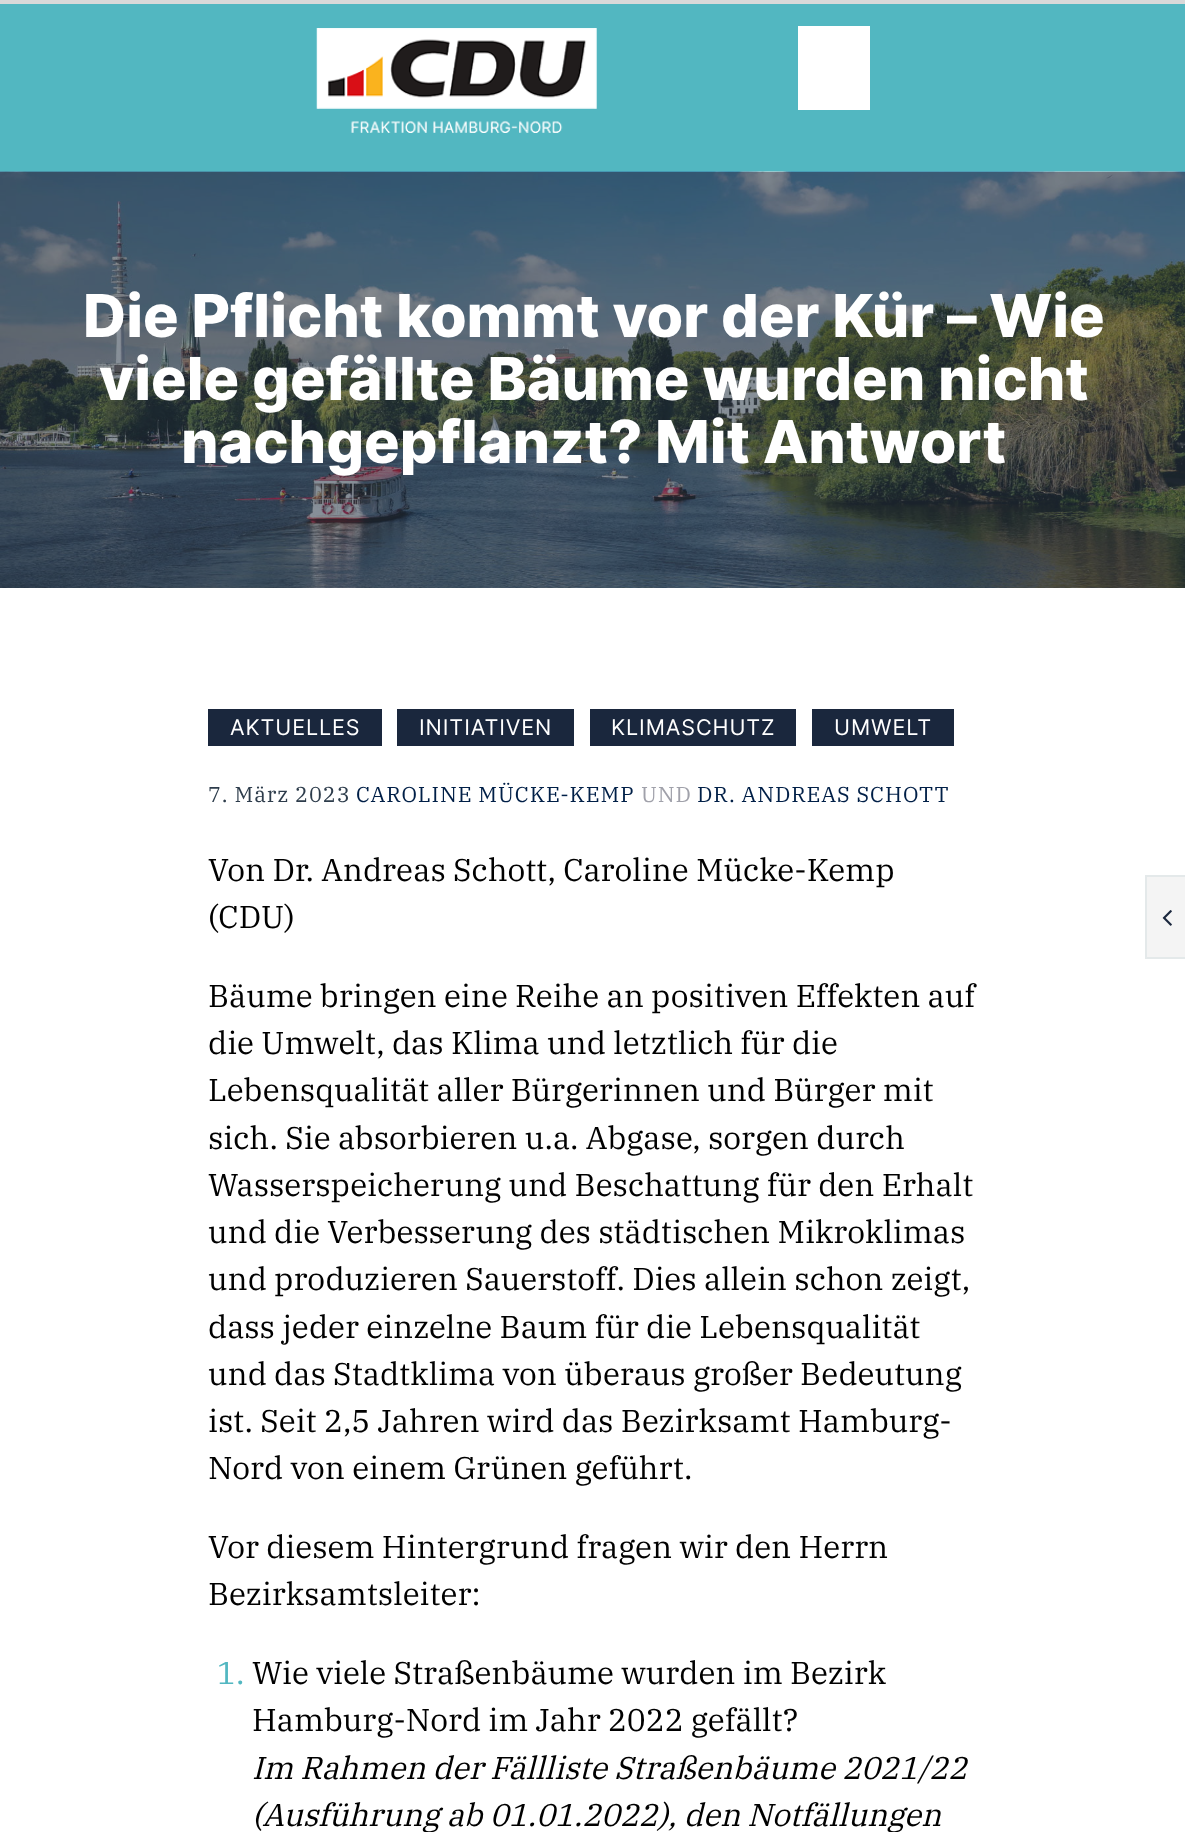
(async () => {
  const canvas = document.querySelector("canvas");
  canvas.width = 1185;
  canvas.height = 1832;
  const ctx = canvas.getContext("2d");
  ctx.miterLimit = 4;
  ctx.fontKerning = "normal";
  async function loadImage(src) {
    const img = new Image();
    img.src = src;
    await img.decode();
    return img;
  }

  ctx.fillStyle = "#ffffff";
  ctx.fillRect(0, 0, 1185, 1832);
  ctx.fillStyle = "#52b7c1";
  ctx.fillRect(0, 4, 1185, 168);
  ctx.fillStyle = "#d9d9d9";
  ctx.fillRect(0, 0, 1185, 4);
  ctx.drawImage(await loadImage("img/1.png"), 316, 28, 281, 105);
  ctx.fillStyle = "#ffffff";
  ctx.fillRect(798, 26, 72, 84);
  ctx.drawImage(await loadImage("img/2.png"), 0, 171, 1185, 417);
  for (const [x, y, w, h, color] of [
    [208, 709, 174, 37, "#1a273d"],
    [397, 709, 177, 37, "#1a273d"],
    [590, 709, 206, 37, "#1a273d"],
    [812, 709, 142, 37, "#1a273d"],
  ]) {
    ctx.fillStyle = color;
    ctx.fillRect(x, y, w, h);
  }
  ctx.fillStyle = "#f4f4f4";
  ctx.beginPath();
  ctx.rect(1146, 876, 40, 82);
  ctx.fill();
  ctx.strokeStyle = "#e4e9ea";
  ctx.lineWidth = 2;
  ctx.stroke();
  ctx.drawImage(await loadImage("img/3.png"), 1162, 910, 10, 16);
  ctx.font = "800 59.2px Inter";
  ctx.fillStyle = "#ffffff";
  for (const [text, x, y] of [
    ["Die Pflicht kommt vor der Kür – Wie", 83, 337],
    ["viele gefällte Bäume wurden nicht", 99, 400],
    ["nachgepflanzt? Mit Antwort", 181, 463],
  ]) {
    ctx.fillText(text, x, y);
  }
  ctx.letterSpacing = "0.9px";
  ctx.font = "21.6px Inter";
  for (const [text, x, y] of [
    ["AKTUELLES", 230, 735],
    ["INITIATIVEN", 419, 735],
    ["KLIMASCHUTZ", 611, 735],
    ["UMWELT", 834, 735],
  ]) {
    ctx.fillText(text, x, y);
  }
  ctx.font = "21.6px IBM Plex Serif";
  ctx.fillStyle = "#2d3c4b";
  ctx.fillText("7. März 2023", 208, 802);
  ctx.fillStyle = "#001f47";
  ctx.fillText("CAROLINE MÜCKE-KEMP", 356, 802);
  ctx.fillStyle = "#a0a1aa";
  ctx.fillText("UND", 641, 802);
  ctx.fillStyle = "#001f47";
  ctx.fillText("DR. ANDREAS SCHOTT", 697, 802);
  ctx.letterSpacing = "0px";
  ctx.font = "31.5px IBM Plex Serif";
  ctx.fillStyle = "#000000";
  for (const [text, x, y] of [
    ["Von Dr. Andreas Schott, Caroline Mücke-Kemp", 208, 881],
    ["(CDU)", 208, 928],
    ["Bäume bringen eine Reihe an positiven Effekten auf", 208, 1007],
    ["die Umwelt, das Klima und letztlich für die", 208, 1054],
    ["Lebensqualität aller Bürgerinnen und Bürger mit", 208, 1101],
    ["sich. Sie absorbieren u.a. Abgase, sorgen durch", 208, 1149],
    ["Wasserspeicherung und Beschattung für den Erhalt", 208, 1196],
    ["und die Verbesserung des städtischen Mikroklimas", 208, 1243],
    ["und produzieren Sauerstoff. Dies allein schon zeigt,", 208, 1290],
    ["dass jeder einzelne Baum für die Lebensqualität", 208, 1338],
    ["und das Stadtklima von überaus großer Bedeutung", 208, 1385],
    ["ist. Seit 2,5 Jahren wird das Bezirksamt Hamburg-", 208, 1432],
    ["Nord von einem Grünen geführt.", 208, 1479],
    ["Vor diesem Hintergrund fragen wir den Herrn", 208, 1558],
    ["Bezirksamtsleiter:", 208, 1605],
  ]) {
    ctx.fillText(text, x, y);
  }
  ctx.fillStyle = "#52b7c1";
  ctx.fillText("1.", 217, 1684);
  ctx.fillStyle = "#000000";
  ctx.fillText("Wie viele Straßenbäume wurden im Bezirk", 252, 1684);
  ctx.fillText("Hamburg-Nord im Jahr 2022 gefällt?", 252, 1731);
  ctx.font = "italic 31.5px IBM Plex Serif";
  ctx.fillText("Im Rahmen der Fällliste Straßenbäume 2021/22", 252, 1779);
  ctx.fillText("(Ausführung ab 01.01.2022), den Notfällungen", 252, 1826);
})();
